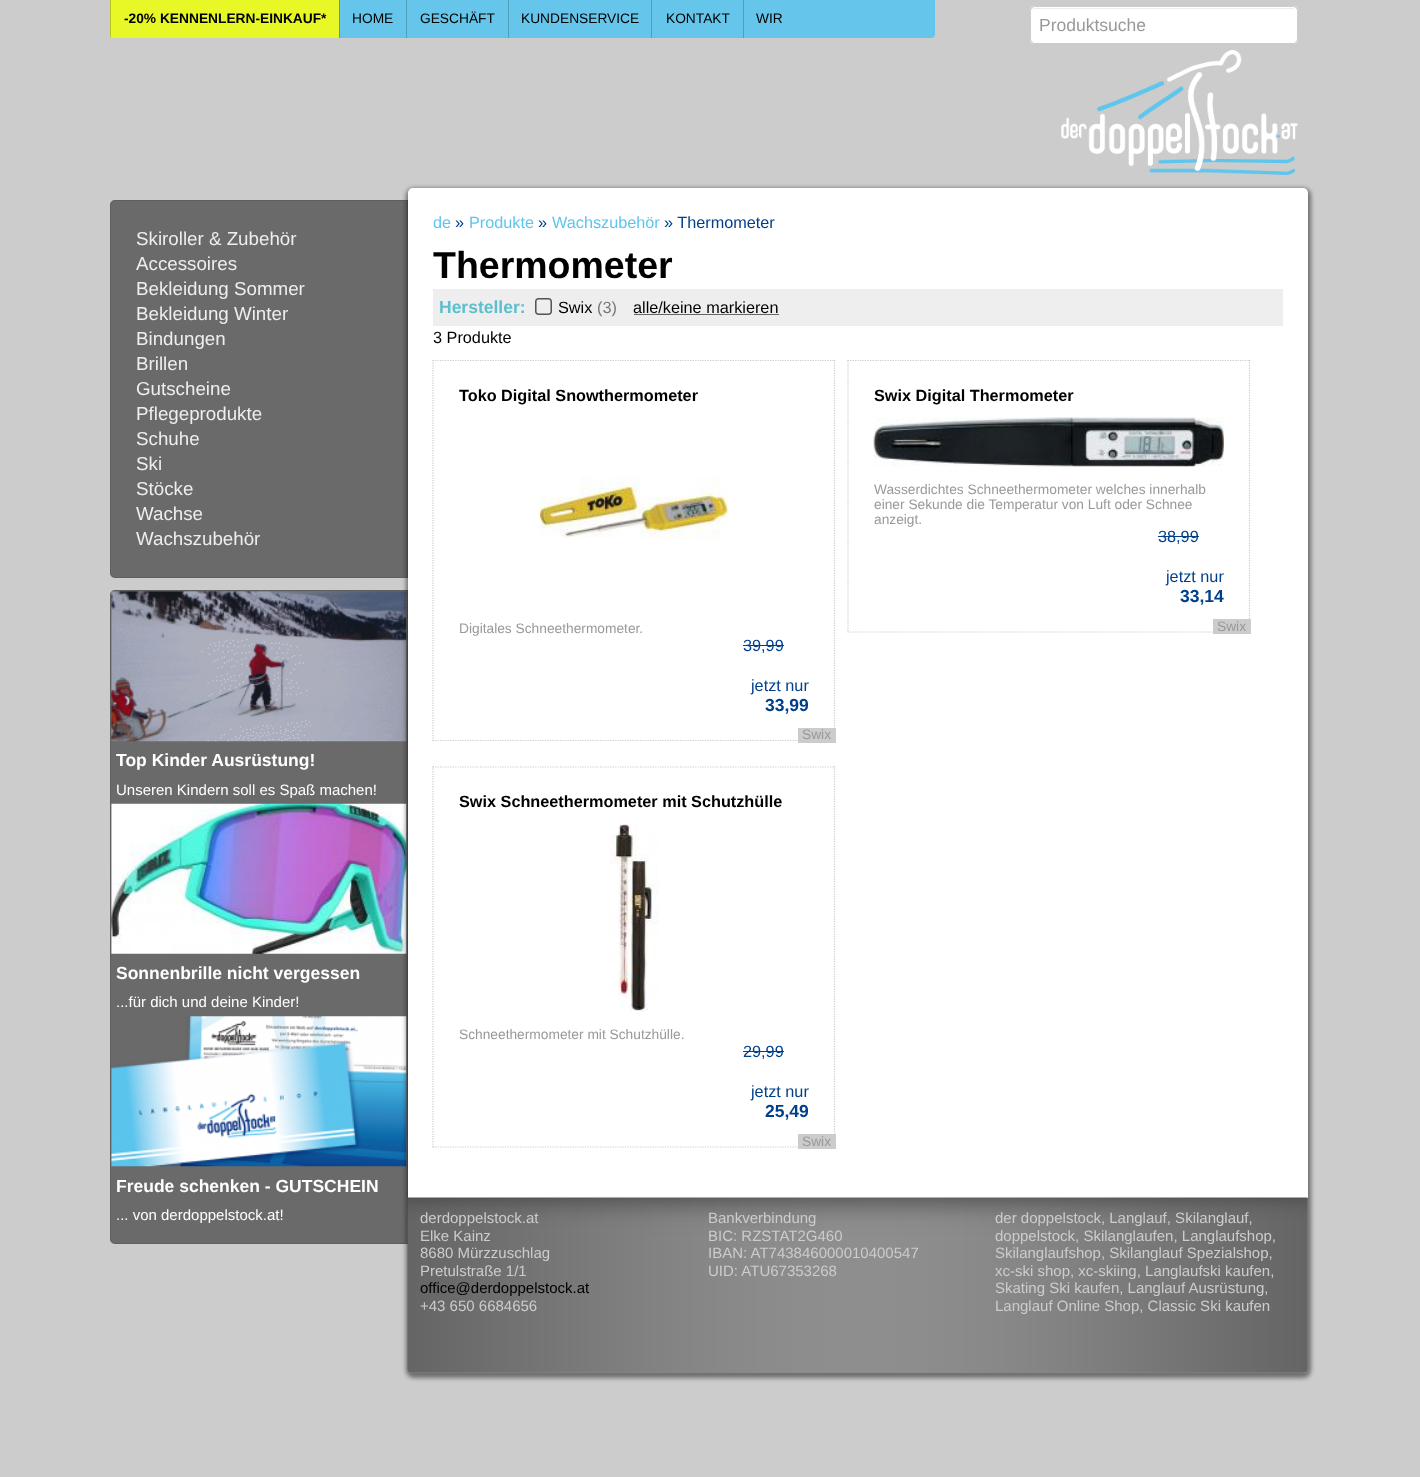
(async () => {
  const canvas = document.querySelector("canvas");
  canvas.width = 1420;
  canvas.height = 1477;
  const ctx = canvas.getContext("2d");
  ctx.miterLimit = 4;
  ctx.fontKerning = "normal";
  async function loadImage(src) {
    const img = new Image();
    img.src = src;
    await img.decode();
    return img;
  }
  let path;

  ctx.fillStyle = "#cccccc";
  ctx.fillRect(0, 0, 1420, 1477);
  ctx.fillStyle = "#65c5eb";
  ctx.beginPath();
  ctx.roundRect(110, 0, 825, 38, [0, 0, 4, 4]);
  ctx.fill();
  for (const [x, y, w, h, color] of [
    [110, 0, 229, 38, "rgba(255, 255, 4, 0.85)"],
    [110, 0, 1, 38, "rgba(0, 0, 0, 0.2)"],
    [339, 0, 1, 38, "#519ebc"],
    [406, 0, 1, 38, "#519ebc"],
    [508, 0, 1, 38, "#519ebc"],
    [651, 0, 1, 38, "#519ebc"],
    [743, 0, 1, 38, "#519ebc"],
  ]) {
    ctx.fillStyle = color;
    ctx.fillRect(x, y, w, h);
  }
  ctx.fillStyle = "#ffffff";
  ctx.beginPath();
  ctx.roundRect(1030, 6, 268, 38, 5);
  ctx.fill();
  ctx.fillStyle = "#ececec";
  path = new Path2D("M1035 9H1292C1294 9 1295 9 1296 10C1295 9 1294 8 1292 8H1035C1033 8 1031 10 1031 12C1031 10 1033 9 1035 9Z");
  ctx.fill(path);
  ctx.beginPath();
  ctx.roundRect(1030.5, 6.5, 267, 37, 4.5);
  ctx.strokeStyle = "#cccccc";
  ctx.stroke();
  ctx.drawImage(await loadImage("img/1.png"), 1061, 50, 237, 125);
  ctx.fillStyle = "#6a6a6a";
  ctx.beginPath();
  ctx.roundRect(110, 200, 298, 378, [5, 0, 0, 5]);
  ctx.fill();
  ctx.beginPath();
  ctx.roundRect(110.5, 200.5, 297, 377, [4.5, 0, 0, 4.5]);
  ctx.strokeStyle = "rgba(80, 80, 80, 0.4)";
  ctx.stroke();
  ctx.beginPath();
  ctx.roundRect(110, 590, 298, 654, [5, 0, 0, 5]);
  ctx.fill();
  ctx.beginPath();
  ctx.roundRect(110.5, 590.5, 297, 653, [4.5, 0, 0, 4.5]);
  ctx.stroke();
  ctx.drawImage(await loadImage("img/2.png"), 111, 591, 296, 151);
  ctx.drawImage(await loadImage("img/3.png"), 111, 803, 296, 151);
  ctx.drawImage(await loadImage("img/4.png"), 111, 1016, 296, 151);
  ctx.fillStyle = "rgba(20, 20, 20, 0.5)";
  ctx.filter = "blur(2px)";
  ctx.beginPath();
  ctx.roundRect(406, 188, 905, 1190, 8);
  ctx.fill();
  ctx.filter = "none";
  ctx.fillStyle = "#ffffff";
  ctx.beginPath();
  ctx.roundRect(408, 188, 900, 1185, 5);
  ctx.fill();
  ctx.fillStyle = "#eeeeee";
  ctx.fillRect(433, 289, 850, 37);
  ctx.drawImage(await loadImage("img/5.png"), 535, 298, 17, 17);
  ctx.fillStyle = "#666666";
  ctx.fillRect(634, 314, 145, 1);
  path = new Path2D("M432.5 360.5H835");
  ctx.strokeStyle = "#cccccc";
  ctx.lineWidth = 1.2;
  ctx.setLineDash([1.25, 1.25]);
  ctx.stroke(path);
  path = new Path2D("M834.5 360V741");
  ctx.stroke(path);
  path = new Path2D("M432.5 740.5H835");
  ctx.stroke(path);
  path = new Path2D("M433 360V741");
  ctx.stroke(path);
  ctx.drawImage(await loadImage("img/6.png"), 540, 477, 188, 62);
  ctx.fillStyle = "#003f8a";
  ctx.fillRect(743, 645, 41, 1);
  ctx.fillStyle = "#cccccc";
  ctx.fillRect(798, 728, 38, 15);
  path = new Path2D("M847.5 360.5H1250");
  ctx.stroke(path);
  path = new Path2D("M1249.5 360V632.5");
  ctx.stroke(path);
  path = new Path2D("M847.5 632H1250");
  ctx.stroke(path);
  path = new Path2D("M848 360V632.5");
  ctx.stroke(path);
  ctx.drawImage(await loadImage("img/7.png"), 873, 417, 351, 50);
  ctx.fillStyle = "#003f8a";
  ctx.fillRect(1158, 536, 41, 1);
  ctx.fillStyle = "#cccccc";
  ctx.fillRect(1213, 619, 38, 15);
  path = new Path2D("M432.5 767H835");
  ctx.stroke(path);
  path = new Path2D("M834.5 766V1147.5");
  ctx.stroke(path);
  path = new Path2D("M432.5 1147H835");
  ctx.stroke(path);
  path = new Path2D("M433 766V1147.5");
  ctx.stroke(path);
  ctx.drawImage(await loadImage("img/8.png"), 609, 823, 50, 189);
  ctx.fillStyle = "#003f8a";
  ctx.fillRect(743, 1051, 41, 1);
  ctx.fillStyle = "#cccccc";
  ctx.fillRect(798, 1134, 38, 15);
  ctx.fillStyle = "#888888";
  ctx.beginPath();
  ctx.roundRect(408, 1198, 900, 175, [0, 0, 4, 4]);
  ctx.fill();
  ctx.drawImage(await loadImage("img/9.png"), 407, 1197, 901, 176);
  ctx.font = "bold 13.75px Liberation Sans";
  ctx.fillStyle = "#000000";
  ctx.fillText("-20% KENNENLERN-EINKAUF*", 124, 23);
  ctx.font = "13.75px Liberation Sans";
  for (const [text, x, y] of [
    ["HOME", 352, 23],
    ["GESCHÄFT", 420, 23],
    ["KUNDENSERVICE", 521, 23],
    ["KONTAKT", 666, 23],
    ["WIR", 756, 23],
  ]) {
    ctx.fillText(text, x, y);
  }
  ctx.font = "17.5px Liberation Sans";
  ctx.fillStyle = "#999999";
  ctx.fillText("Produktsuche", 1039, 31);
  ctx.font = "18.75px Liberation Sans";
  ctx.fillStyle = "#eeeeee";
  for (const [text, x, y] of [
    ["Skiroller & Zubehör", 136, 245],
    ["Accessoires", 136, 270],
    ["Bekleidung Sommer", 136, 295],
    ["Bekleidung Winter", 136, 320],
    ["Bindungen", 136, 345],
    ["Brillen", 136, 370],
    ["Gutscheine", 136, 395],
    ["Pflegeprodukte", 136, 420],
    ["Schuhe", 136, 445],
    ["Ski", 136, 470],
    ["Stöcke", 136, 495],
    ["Wachse", 136, 520],
    ["Wachszubehör", 136, 545],
  ]) {
    ctx.fillText(text, x, y);
  }
  ctx.font = "bold 17.5px Liberation Sans";
  ctx.fillStyle = "#ffffff";
  ctx.fillText("Top Kinder Ausrüstung!", 116, 766);
  ctx.font = "15px Liberation Sans";
  ctx.fillText("Unseren Kindern soll es Spaß machen!", 116, 795);
  ctx.font = "bold 17.5px Liberation Sans";
  ctx.fillText("Sonnenbrille nicht vergessen", 116, 979);
  ctx.font = "15px Liberation Sans";
  ctx.fillText("...für dich und deine Kinder!", 116, 1007);
  ctx.font = "bold 17.5px Liberation Sans";
  ctx.fillText("Freude schenken - GUTSCHEIN", 116, 1192);
  ctx.font = "15px Liberation Sans";
  ctx.fillText("... von derdoppelstock.at!", 116, 1220);
  ctx.font = "16.25px Liberation Sans";
  ctx.fillStyle = "#5dc5ed";
  ctx.fillText("de", 433, 228);
  ctx.fillStyle = "#003f8a";
  ctx.fillText("»", 455, 228);
  ctx.fillStyle = "#5dc5ed";
  ctx.fillText("Produkte", 469, 228);
  ctx.fillStyle = "#003f8a";
  ctx.fillText("»", 538, 228);
  ctx.fillStyle = "#5dc5ed";
  ctx.fillText("Wachszubehör", 552, 228);
  ctx.fillStyle = "#003f8a";
  ctx.fillText("» Thermometer", 664, 228);
  ctx.font = "bold 37.5px Liberation Sans";
  ctx.fillStyle = "#000000";
  ctx.fillText("Thermometer", 433, 278);
  ctx.font = "bold 17.5px Liberation Sans";
  ctx.fillStyle = "#5dbfcd";
  ctx.fillText("Hersteller:", 439, 313);
  ctx.font = "16.25px Liberation Sans";
  ctx.fillStyle = "#000000";
  ctx.fillText("Swix", 558, 313);
  ctx.fillStyle = "#777777";
  ctx.fillText("(3)", 597, 313);
  ctx.fillStyle = "#000000";
  ctx.fillText("alle/keine markieren", 633, 313);
  ctx.fillText("3 Produkte", 433, 343);
  ctx.font = "bold 16.25px Liberation Sans";
  ctx.fillText("Toko Digital Snowthermometer", 459, 401);
  ctx.font = "13.75px Liberation Sans";
  ctx.fillStyle = "#999999";
  ctx.fillText("Digitales Schneethermometer.", 459, 633);
  ctx.font = "16.25px Liberation Sans";
  ctx.fillStyle = "#003f8a";
  ctx.fillText("39,99", 743, 651);
  ctx.fillText("jetzt nur", 751, 691);
  ctx.font = "bold 17.5px Liberation Sans";
  ctx.fillText("33,99", 765, 711);
  ctx.font = "13.75px Liberation Sans";
  ctx.fillStyle = "#999999";
  ctx.fillText("Swix", 802, 739);
  ctx.font = "bold 16.25px Liberation Sans";
  ctx.fillStyle = "#000000";
  ctx.fillText("Swix Digital Thermometer", 874, 401);
  ctx.font = "13.75px Liberation Sans";
  ctx.fillStyle = "#999999";
  for (const [text, x, y] of [
    ["Wasserdichtes Schneethermometer welches innerhalb", 874, 494],
    ["einer Sekunde die Temperatur von Luft oder Schnee", 874, 509],
    ["anzeigt.", 874, 524],
  ]) {
    ctx.fillText(text, x, y);
  }
  ctx.font = "16.25px Liberation Sans";
  ctx.fillStyle = "#003f8a";
  ctx.fillText("38,99", 1158, 542);
  ctx.fillText("jetzt nur", 1166, 582);
  ctx.font = "bold 17.5px Liberation Sans";
  ctx.fillText("33,14", 1180, 602);
  ctx.font = "13.75px Liberation Sans";
  ctx.fillStyle = "#999999";
  ctx.fillText("Swix", 1217, 631);
  ctx.font = "bold 16.25px Liberation Sans";
  ctx.fillStyle = "#000000";
  ctx.fillText("Swix Schneethermometer mit Schutzhülle", 459, 807);
  ctx.font = "13.75px Liberation Sans";
  ctx.fillStyle = "#999999";
  ctx.fillText("Schneethermometer mit Schutzhülle.", 459, 1039);
  ctx.font = "16.25px Liberation Sans";
  ctx.fillStyle = "#003f8a";
  ctx.fillText("29,99", 743, 1057);
  ctx.fillText("jetzt nur", 751, 1097);
  ctx.font = "bold 17.5px Liberation Sans";
  ctx.fillText("25,49", 765, 1117);
  ctx.font = "13.75px Liberation Sans";
  ctx.fillStyle = "#999999";
  ctx.fillText("Swix", 802, 1146);
  ctx.font = "15px Liberation Sans";
  ctx.fillStyle = "#cccccc";
  for (const [text, x, y] of [
    ["derdoppelstock.at", 420, 1223],
    ["Elke Kainz", 420, 1241],
    ["8680 Mürzzuschlag", 420, 1258],
    ["Pretulstraße 1/1", 420, 1276],
  ]) {
    ctx.fillText(text, x, y);
  }
  ctx.fillStyle = "#000000";
  ctx.fillText("office@derdoppelstock.at", 420, 1293);
  ctx.fillStyle = "#cccccc";
  for (const [text, x, y] of [
    ["+43 650 6684656", 420, 1311],
    ["Bankverbindung", 708, 1223],
    ["BIC: RZSTAT2G460", 708, 1241],
    ["IBAN: AT743846000010400547", 708, 1258],
    ["UID: ATU67353268", 708, 1276],
    ["der doppelstock, Langlauf, Skilanglauf,", 995, 1223],
    ["doppelstock, Skilanglaufen, Langlaufshop,", 995, 1241],
    ["Skilanglaufshop, Skilanglauf Spezialshop,", 995, 1258],
    ["xc-ski shop, xc-skiing, Langlaufski kaufen,", 995, 1276],
    ["Skating Ski kaufen, Langlauf Ausrüstung,", 995, 1293],
    ["Langlauf Online Shop, Classic Ski kaufen", 995, 1311],
  ]) {
    ctx.fillText(text, x, y);
  }
})();
